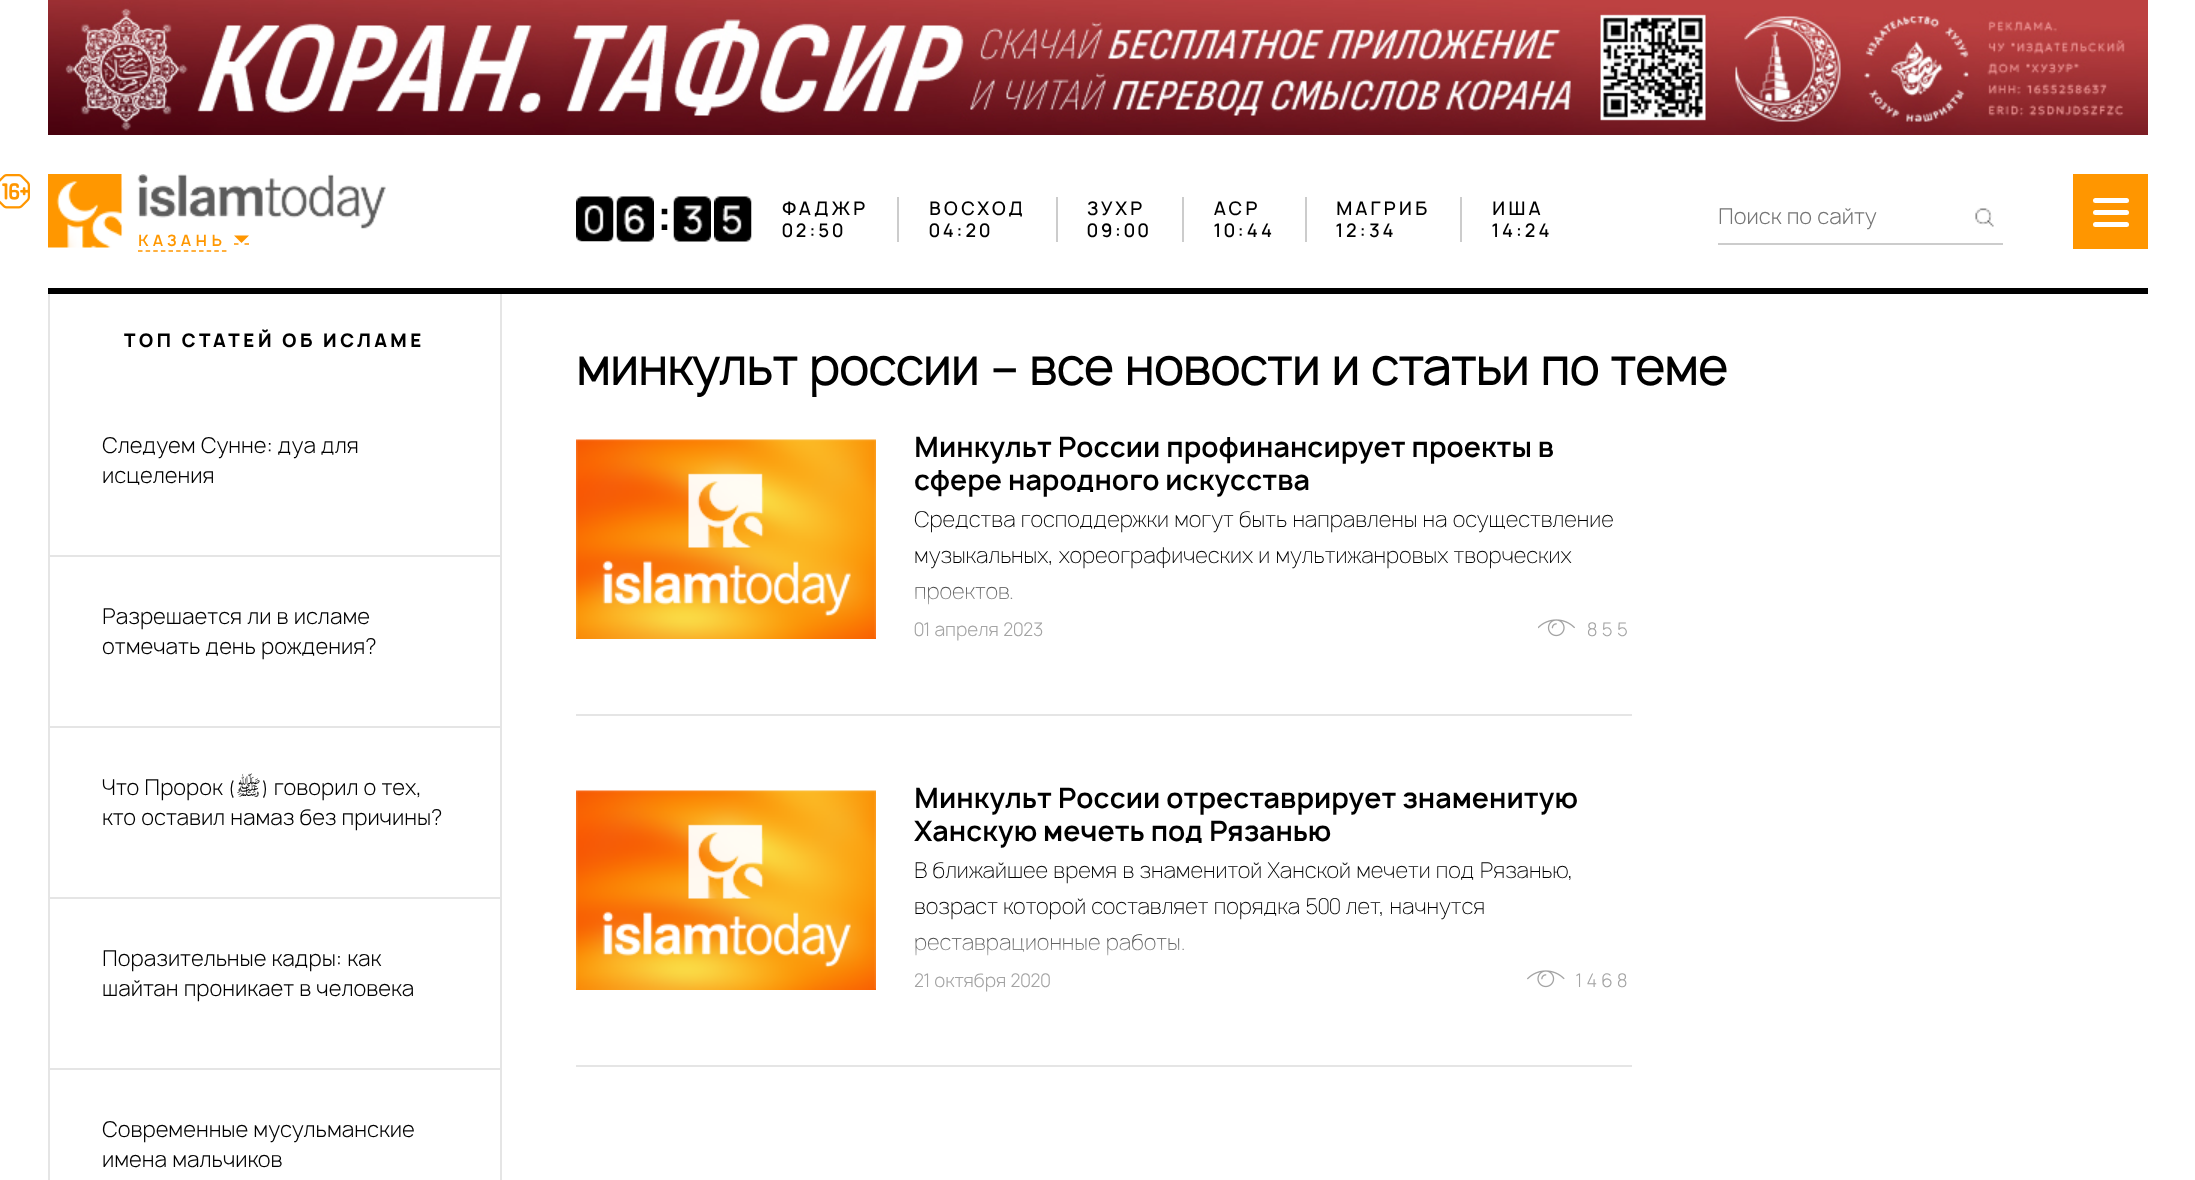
(async () => {
  const canvas = document.querySelector("canvas");
  canvas.width = 2195;
  canvas.height = 1180;
  const ctx = canvas.getContext("2d");
  ctx.miterLimit = 4;
  ctx.fontKerning = "normal";
  async function loadImage(src) {
    const img = new Image();
    img.src = src;
    await img.decode();
    return img;
  }
  let gradient, path;

  ctx.fillStyle = "#ffffff";
  ctx.fillRect(0, 0, 2195, 1180);
  ctx.drawImage(await loadImage("img/1.png"), 48, 0, 2100, 135);
  ctx.fillStyle = "#000000";
  ctx.fillRect(48, 288, 2100, 6);
  ctx.fillStyle = "#cccccc";
  ctx.fillRect(897, 197, 2, 45);
  ctx.drawImage(await loadImage("img/2.png"), 576, 196, 38, 46);
  ctx.drawImage(await loadImage("img/3.png"), 616, 196, 38, 46);
  ctx.drawImage(await loadImage("img/4.png"), 673, 196, 38, 46);
  ctx.drawImage(await loadImage("img/5.png"), 714, 196, 38, 46);
  for (const [x, y, w, h, color] of [
    [1056, 197, 2, 45, "#cccccc"],
    [1182, 197, 2, 45, "#cccccc"],
    [1305, 197, 2, 45, "#cccccc"],
    [1460, 197, 2, 45, "#cccccc"],
  ]) {
    ctx.fillStyle = color;
    ctx.fillRect(x, y, w, h);
  }
  ctx.drawImage(await loadImage("img/6.png"), 1975, 208, 19, 19);
  ctx.fillRect(1718, 243, 285, 2);
  ctx.fillStyle = "#ff9600";
  ctx.fillRect(2073, 174, 75, 75);
  ctx.fillStyle = "#ffffff";
  ctx.beginPath();
  ctx.roundRect(2093, 198, 36, 5, 2.5);
  ctx.fill();
  ctx.beginPath();
  ctx.roundRect(2093, 210, 36, 5, 2.5);
  ctx.fill();
  ctx.beginPath();
  ctx.roundRect(2093, 222, 36, 5, 2.5);
  ctx.fill();
  ctx.drawImage(await loadImage("img/7.png"), 0, 174, 30, 35);
  ctx.drawImage(await loadImage("img/8.png"), 48, 174, 338, 74);
  path = new Path2D("M138 251H226.5");
  ctx.strokeStyle = "#ff9700";
  ctx.lineWidth = 1.5;
  ctx.setLineDash([4.5, 3.13]);
  ctx.stroke(path);
  path = new Path2D("M234 244H238.5M244.5 244H249");
  ctx.setLineDash([]);
  ctx.stroke(path);
  ctx.fillStyle = "#ff9600";
  path = new Path2D("M234 235.5H249L241.5 243Z");
  ctx.fill(path);
  for (const [x, y, w, h, color] of [
    [500, 294, 2, 886, "#e5e5e5"],
    [48, 294, 2, 886, "#e5e5e5"],
    [50, 555, 450, 2, "#e5e5e5"],
    [50, 726, 450, 2, "#e5e5e5"],
    [50, 897, 450, 2, "#e5e5e5"],
    [50, 1068, 450, 2, "#e5e5e5"],
    [576, 714, 1056, 2, "#e5e5e5"],
  ]) {
    ctx.fillStyle = color;
    ctx.fillRect(x, y, w, h);
  }
  ctx.drawImage(await loadImage("img/9.png"), 576, 439, 300, 200);
  ctx.drawImage(await loadImage("img/10.png"), 1538, 619, 37, 18);
  ctx.fillRect(576, 1065, 1056, 2);
  ctx.drawImage(await loadImage("img/9.png"), 576, 790, 300, 200);
  ctx.drawImage(await loadImage("img/11.png"), 1527, 970, 38, 18);
  ctx.letterSpacing = "3px";
  ctx.font = "500 52px Manrope";
  ctx.fillStyle = "#000000";
  ctx.fillText(":", 656, 234);
  ctx.font = "500 18px Manrope";
  for (const [text, x, y] of [
    ["ФАДЖР", 782, 215],
    ["02:50", 782, 237],
    ["ВОСХОД", 929, 215],
    ["04:20", 929, 237],
    ["ЗУХР", 1087, 215],
    ["09:00", 1087, 237],
    ["АСР", 1214, 215],
    ["10:44", 1214, 237],
    ["МАГРИБ", 1336, 215],
    ["12:34", 1336, 237],
    ["ИША", 1492, 215],
    ["14:24", 1492, 237],
  ]) {
    ctx.fillText(text, x, y);
  }
  ctx.letterSpacing = "0px";
  ctx.font = "300 21px Manrope";
  ctx.fillStyle = "#757575";
  ctx.fillText("Поиск по сайту", 1718, 224);
  ctx.letterSpacing = "4.5px";
  ctx.font = "600 15px Manrope";
  ctx.fillStyle = "#ff9700";
  ctx.fillText("КАЗАНЬ", 138, 246);
  ctx.letterSpacing = "3.25px";
  ctx.font = "bold 18px Manrope";
  ctx.fillStyle = "#000000";
  ctx.fillText("ТОП СТАТЕЙ ОБ ИСЛАМЕ", 124, 347);
  ctx.letterSpacing = "0px";
  ctx.font = "300 21px Manrope";
  for (const [text, x, y] of [
    ["Следуем Сунне: дуа для", 102, 453],
    ["исцеления", 102, 483],
    ["Разрешается ли в исламе", 102, 624],
    ["отмечать день рождения?", 102, 654],
    ["Что Пророк (", 102, 795],
  ]) {
    ctx.fillText(text, x, y);
  }
  ctx.direction = "rtl";
  ctx.font = "21px Lateef";
  ctx.fillText("ﷺ", 261, 795);
  ctx.direction = "ltr";
  ctx.font = "300 21px Manrope";
  for (const [text, x, y] of [
    [") говорил о тех,", 261, 795],
    ["кто оставил намаз без причины?", 102, 825],
    ["Поразительные кадры: как", 102, 966],
    ["шайтан проникает в человека", 102, 996],
    ["Современные мусульманские", 102, 1137],
    ["имена мальчиков", 102, 1167],
  ]) {
    ctx.fillText(text, x, y);
  }
  ctx.font = "bold 48px 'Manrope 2'";
  ctx.fillText("минкульт россии – все новости и статьи по теме", 576, 385);
  ctx.font = "600 27px Manrope";
  ctx.fillText("Минкульт России профинансирует проекты в", 914, 457);
  ctx.fillText("сфере народного искусства", 914, 490);
  ctx.font = "100 21px Manrope";
  for (const [text, x, y] of [
    ["Средства господдержки могут быть направлены на осуществление", 914, 527],
    ["музыкальных, хореографических и мультижанровых творческих", 914, 563],
    ["проектов.", 914, 599],
  ]) {
    ctx.fillText(text, x, y);
  }
  gradient = ctx.createLinearGradient(1273, 620, 1273, 575);
  gradient.addColorStop(0, "#ffffff");
  gradient.addColorStop(1, "rgba(255, 255, 255, 0)");
  ctx.fillStyle = gradient;
  ctx.fillRect(915, 586, 97, 19);
  ctx.font = "300 18px Manrope";
  ctx.fillStyle = "#a3a3a3";
  ctx.fillText("01 апреля 2023", 914, 636);
  ctx.letterSpacing = "4.5px";
  ctx.fillText("855", 1587, 636);
  ctx.letterSpacing = "0px";
  ctx.font = "600 27px Manrope";
  ctx.fillStyle = "#000000";
  ctx.fillText("Минкульт России отреставрирует знаменитую", 914, 808);
  ctx.fillText("Ханскую мечеть под Рязанью", 914, 841);
  ctx.font = "100 21px Manrope";
  for (const [text, x, y] of [
    ["В ближайшее время в знаменитой Ханской мечети под Рязанью,", 914, 878],
    ["возраст которой составляет порядка 500 лет, начнутся", 914, 914],
    ["реставрационные работы.", 914, 950],
  ]) {
    ctx.fillText(text, x, y);
  }
  gradient = ctx.createLinearGradient(1273, 971, 1273, 926);
  gradient.addColorStop(0, "#ffffff");
  gradient.addColorStop(1, "rgba(255, 255, 255, 0)");
  ctx.fillStyle = gradient;
  ctx.fillRect(915, 934, 269, 22);
  ctx.font = "300 18px Manrope";
  ctx.fillStyle = "#a3a3a3";
  ctx.fillText("21 октября 2020", 914, 987);
  ctx.letterSpacing = "4.5px";
  ctx.fillText("1468", 1576, 987);
})();
